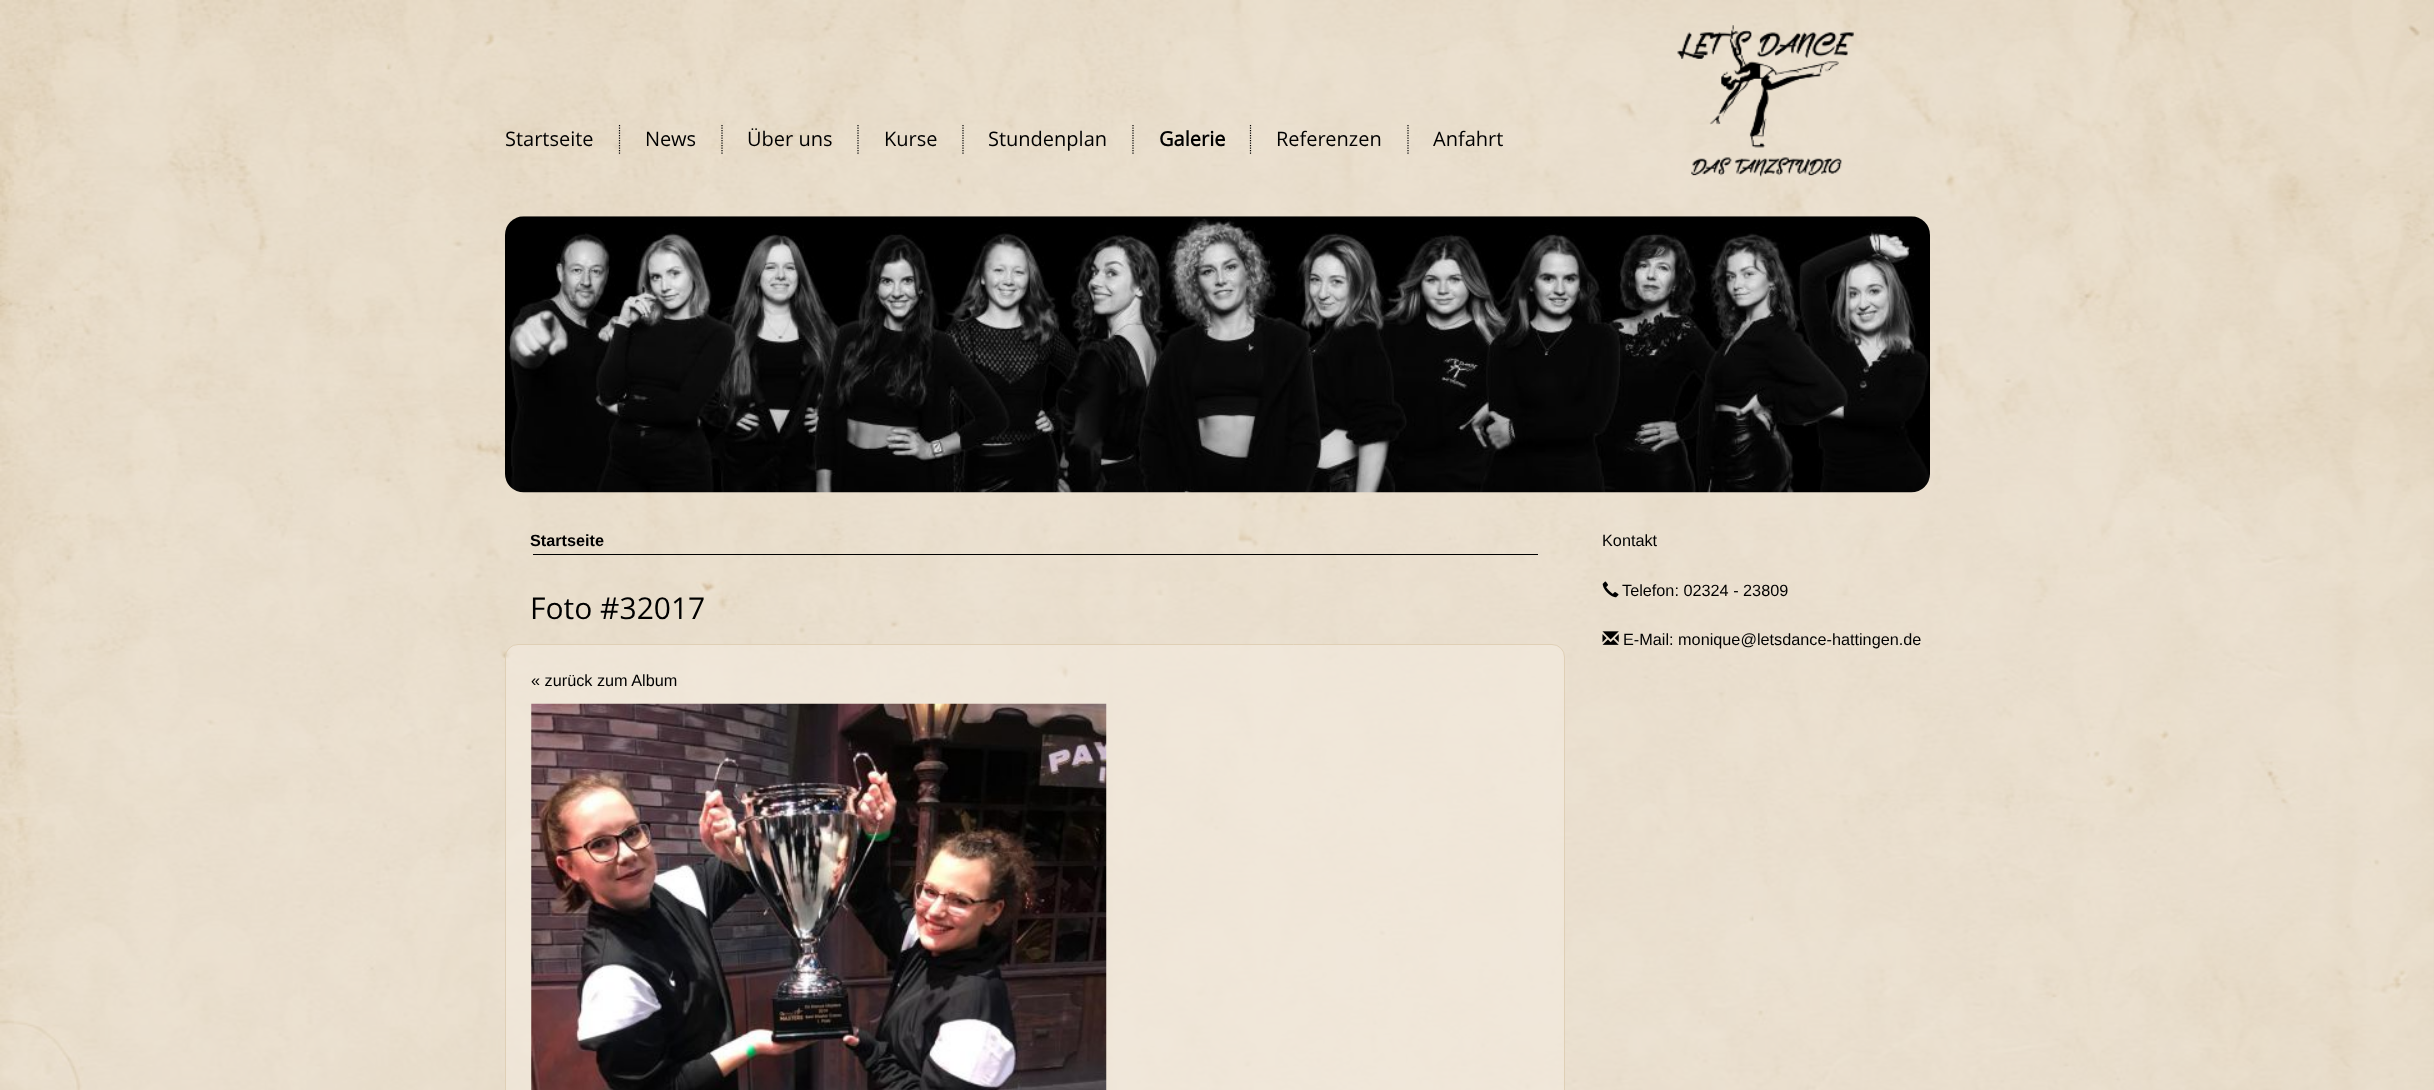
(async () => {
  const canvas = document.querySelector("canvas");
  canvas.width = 2434;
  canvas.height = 1090;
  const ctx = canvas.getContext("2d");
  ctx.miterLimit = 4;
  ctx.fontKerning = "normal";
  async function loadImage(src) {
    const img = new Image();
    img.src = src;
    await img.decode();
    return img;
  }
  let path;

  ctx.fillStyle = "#e7dbc9";
  ctx.fillRect(0, 0, 2434, 1090);
  ctx.drawImage(await loadImage("img/1.png"), 0, 0, 2434, 1090);
  path = new Path2D("M619.5 125V154");
  ctx.strokeStyle = "#000000";
  ctx.lineWidth = 1.2;
  ctx.setLineDash([1.25, 1.25]);
  ctx.stroke(path);
  path = new Path2D("M722 125V154");
  ctx.stroke(path);
  path = new Path2D("M858 125V154");
  ctx.stroke(path);
  path = new Path2D("M963 125V154");
  ctx.stroke(path);
  path = new Path2D("M1133 125V154");
  ctx.stroke(path);
  path = new Path2D("M1250.5 125V154");
  ctx.stroke(path);
  path = new Path2D("M1408 125V154");
  ctx.stroke(path);
  ctx.drawImage(await loadImage("img/2.png"), 1677, 25, 177, 152);
  ctx.drawImage(await loadImage("img/3.png"), 505, 216, 1425, 277);
  ctx.fillStyle = "#000000";
  ctx.fillRect(533, 554, 1005, 1);
  ctx.fillStyle = "rgba(243, 235, 223, 0.6)";
  ctx.beginPath();
  ctx.roundRect(505.5, 644.5, 1059, 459, 12.5);
  ctx.fill();
  ctx.strokeStyle = "#dfcfb5";
  ctx.lineWidth = 1;
  ctx.setLineDash([]);
  ctx.stroke();
  ctx.drawImage(await loadImage("img/4.png"), 531, 703, 576, 387);
  ctx.drawImage(await loadImage("img/5.png"), 1602, 581, 17, 17);
  ctx.drawImage(await loadImage("img/6.png"), 1602, 631, 17, 14);
  ctx.font = "20px Open Sans";
  ctx.fillStyle = "#000000";
  for (const [text, x, y] of [
    ["Startseite", 505, 146],
    ["News", 645, 146],
    ["Über uns", 747, 146],
    ["Kurse", 884, 146],
    ["Stundenplan", 988, 146],
  ]) {
    ctx.fillText(text, x, y);
  }
  ctx.font = "bold 20px Open Sans";
  ctx.fillText("Galerie", 1159, 146);
  ctx.font = "20px Open Sans";
  ctx.fillText("Referenzen", 1276, 146);
  ctx.fillText("Anfahrt", 1433, 146);
  ctx.font = "bold 16.25px Liberation Sans";
  ctx.fillText("Startseite", 530, 546);
  ctx.font = "30px Open Sans";
  ctx.fillText("Foto #32017", 530, 619);
  ctx.font = "16.25px Liberation Sans";
  for (const [text, x, y] of [
    ["« zurück zum Album", 531, 686],
    ["Kontakt", 1602, 546],
    ["Telefon: 02324 - 23809", 1622, 596],
    ["E-Mail: monique@letsdance-hattingen.de", 1623, 645],
  ]) {
    ctx.fillText(text, x, y);
  }
})();
